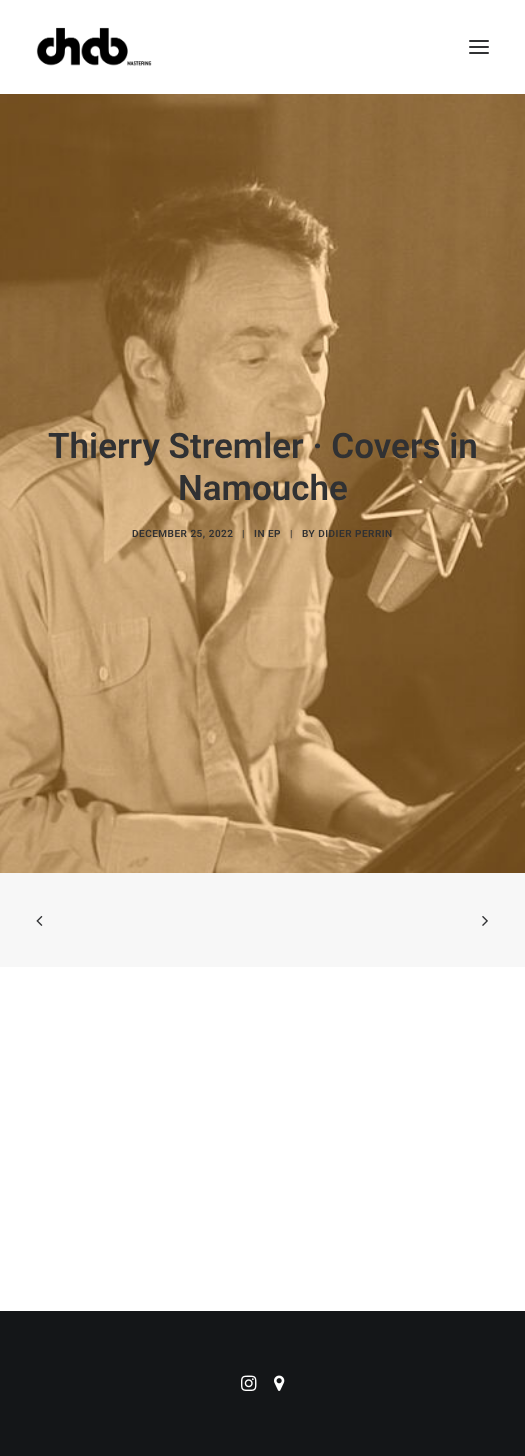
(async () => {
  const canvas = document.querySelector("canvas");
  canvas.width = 525;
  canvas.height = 1456;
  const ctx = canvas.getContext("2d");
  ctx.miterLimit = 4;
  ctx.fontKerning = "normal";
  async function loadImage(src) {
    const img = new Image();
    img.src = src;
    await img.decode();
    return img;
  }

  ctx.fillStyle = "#ffffff";
  ctx.fillRect(0, 0, 525, 1456);
  ctx.drawImage(await loadImage("img/1.png"), 36, 27, 116, 39);
  ctx.fillStyle = "#303133";
  ctx.beginPath();
  ctx.roundRect(469, 46, 20, 2, 1);
  ctx.fill();
  ctx.beginPath();
  ctx.roundRect(469, 40, 20, 2, 1);
  ctx.fill();
  ctx.beginPath();
  ctx.roundRect(469, 52, 20, 2, 1);
  ctx.fill();
  ctx.drawImage(await loadImage("img/2.png"), 0, 94, 525, 779);
  ctx.fillStyle = "#f7f7f7";
  ctx.fillRect(0, 873, 525, 94);
  ctx.drawImage(await loadImage("img/3.png"), 36, 915, 7, 11);
  ctx.drawImage(await loadImage("img/4.png"), 482, 916, 6, 10);
  ctx.fillStyle = "#141618";
  ctx.fillRect(0, 1311, 525, 145);
  ctx.drawImage(await loadImage("img/5.png"), 241, 1375, 16, 16);
  ctx.drawImage(await loadImage("img/6.png"), 274, 1375, 11, 16);
  ctx.font = "600 35px Roboto";
  ctx.fillStyle = "#303133";
  ctx.fillText("Thierry Stremler · Covers in", 48, 458);
  ctx.fillText("Namouche", 178, 500);
  ctx.letterSpacing = "0.5px";
  ctx.font = "600 10px Roboto";
  ctx.fillText("DECEMBER 25, 2022", 132, 537);
  ctx.font = "10px Roboto";
  ctx.fillText("|", 242, 537);
  ctx.font = "600 10px Roboto";
  ctx.fillText("IN EP", 254, 537);
  ctx.font = "10px Roboto";
  ctx.fillText("|", 290, 537);
  ctx.font = "600 10px Roboto";
  ctx.fillText("BY DIDIER PERRIN", 302, 537);
})();
